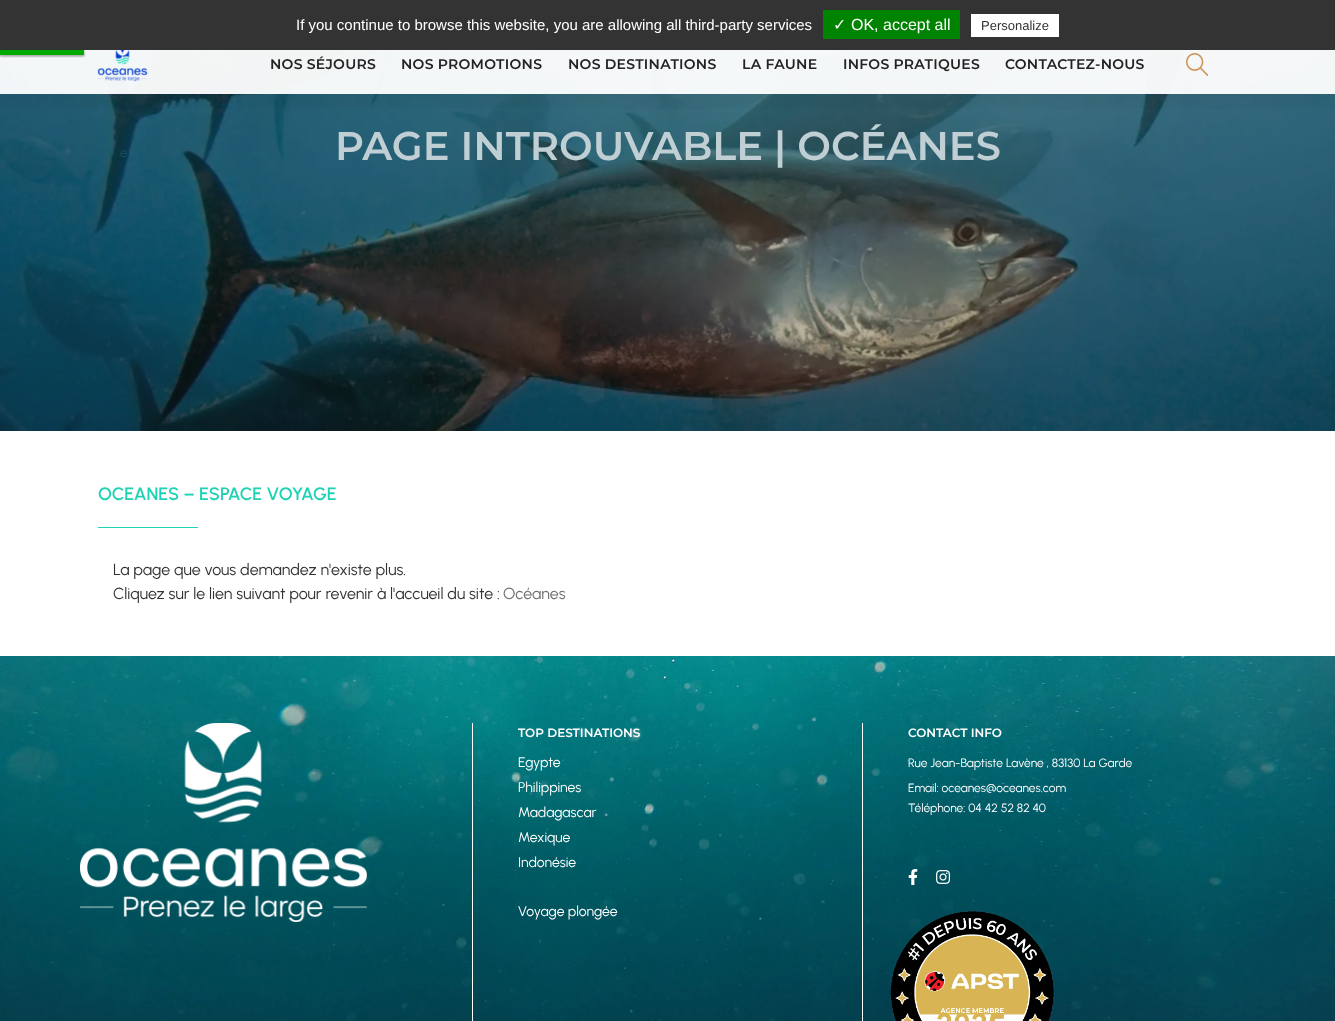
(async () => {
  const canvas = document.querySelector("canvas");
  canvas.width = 1335;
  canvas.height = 1021;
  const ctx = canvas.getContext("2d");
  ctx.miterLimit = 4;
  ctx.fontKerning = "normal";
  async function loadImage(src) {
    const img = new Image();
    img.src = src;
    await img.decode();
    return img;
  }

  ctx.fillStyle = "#ffffff";
  ctx.fillRect(0, 0, 1335, 1021);
  ctx.drawImage(await loadImage("img/3.png"), 0, 50, 1335, 381);
  ctx.save();
  ctx.beginPath();
  ctx.rect(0, 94, 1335, 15);
  ctx.clip();
  ctx.fillStyle = "rgba(0, 0, 0, 0.1)";
  ctx.filter = "blur(17.5px)";
  ctx.beginPath();
  ctx.rect(0, 34, 1335, 60);
  ctx.fill();
  ctx.filter = "none";
  ctx.restore();
  ctx.fillStyle = "rgba(255, 255, 255, 0.95)";
  ctx.fillRect(0, 50, 1335, 44);
  ctx.fillStyle = "#555555";
  ctx.filter = "blur(1px)";
  ctx.beginPath();
  ctx.rect(0, 51, 84, 5);
  ctx.fill();
  ctx.filter = "none";
  ctx.fillStyle = "#ffffff";
  ctx.filter = "blur(1px)";
  ctx.beginPath();
  ctx.rect(0, 50, 84, 5);
  ctx.fill();
  ctx.filter = "none";
  for (const [x, y, w, h, color] of [
    [0, 0, 1335, 50, "#333333"],
    [823, 10, 137, 29, "#008300"],
    [971, 14, 88, 23, "#ffffff"],
    [0, 50, 84, 5, "#00aa00"],
  ]) {
    ctx.fillStyle = color;
    ctx.fillRect(x, y, w, h);
  }
  ctx.drawImage(await loadImage("img/1.png"), 97, 50, 51, 32);
  ctx.drawImage(await loadImage("img/2.png"), 1186, 53, 23, 23);
  ctx.fillStyle = "#1ed2b4";
  ctx.fillRect(98, 527, 100, 1);
  ctx.drawImage(await loadImage("img/4.png"), 0, 656, 1335, 365);
  ctx.fillStyle = "#ffffff";
  ctx.fillRect(472, 723, 1, 298);
  ctx.drawImage(await loadImage("img/5.png"), 80, 723, 287, 199);
  ctx.fillRect(862, 723, 1, 298);
  ctx.drawImage(await loadImage("img/6.png"), 908, 869, 10, 16);
  ctx.drawImage(await loadImage("img/7.png"), 936, 870, 15, 14);
  ctx.drawImage(await loadImage("img/8.png"), 890, 910, 165, 111);
  ctx.font = "15px Liberation Sans";
  ctx.fillText("If you continue to browse this website, you are allowing all third-party services", 296, 30);
  ctx.font = "16px DejaVu Sans";
  ctx.fillText("✓", 833, 30);
  ctx.font = "16px Liberation Sans";
  ctx.fillText("OK, accept all", 851, 30);
  ctx.font = "13px Liberation Sans";
  ctx.fillStyle = "#333333";
  ctx.fillText("Personalize", 981, 30);
  ctx.letterSpacing = "0.25px";
  ctx.font = "600 14px Montserrat";
  ctx.fillStyle = "#232323";
  for (const [text, x, y] of [
    ["NOS SÉJOURS", 270, 69],
    ["NOS PROMOTIONS", 401, 69],
    ["NOS DESTINATIONS", 568, 69],
    ["LA FAUNE", 742, 69],
    ["INFOS PRATIQUES", 843, 69],
    ["CONTACTEZ-NOUS", 1005, 69],
  ]) {
    ctx.fillText(text, x, y);
  }
  ctx.letterSpacing = "0px";
  ctx.font = "13px Urbanist";
  ctx.fillStyle = "#195065";
  ctx.fillText("e", 120, 157);
  ctx.font = "600 40px Montserrat";
  ctx.fillStyle = "#c0cfd3";
  ctx.fillText("PAGE INTROUVABLE | OCÉANES", 335, 160);
  ctx.font = "600 18px Urbanist";
  ctx.fillStyle = "#1ed2b4";
  ctx.fillText("OCEANES – ESPACE VOYAGE", 98, 500);
  ctx.font = "16px Urbanist";
  ctx.fillStyle = "#333333";
  ctx.fillText("La page que vous demandez n'existe plus.", 113, 575);
  ctx.fillText("Cliquez sur le lien suivant pour revenir à l'accueil du site :", 113, 599);
  ctx.fillStyle = "#6f6f6f";
  ctx.fillText("Océanes", 503, 599);
  ctx.font = "600 12px Montserrat";
  ctx.fillStyle = "#ffffff";
  ctx.fillText("TOP DESTINATIONS", 518, 737);
  ctx.font = "14px Urbanist";
  for (const [text, x, y] of [
    ["Egypte", 518, 767],
    ["Philippines", 518, 792],
    ["Madagascar", 518, 817],
    ["Mexique", 518, 842],
    ["Indonésie", 518, 867],
    ["Voyage plongée", 518, 916],
  ]) {
    ctx.fillText(text, x, y);
  }
  ctx.font = "600 12px Montserrat";
  ctx.fillText("CONTACT INFO", 908, 737);
  ctx.font = "12px Urbanist";
  for (const [text, x, y] of [
    ["Rue Jean-Baptiste Lavène , 83130 La Garde", 908, 767],
    ["Email: oceanes@oceanes.com", 908, 792],
    ["Téléphone: 04 42 52 82 40", 908, 812],
  ]) {
    ctx.fillText(text, x, y);
  }
})();
